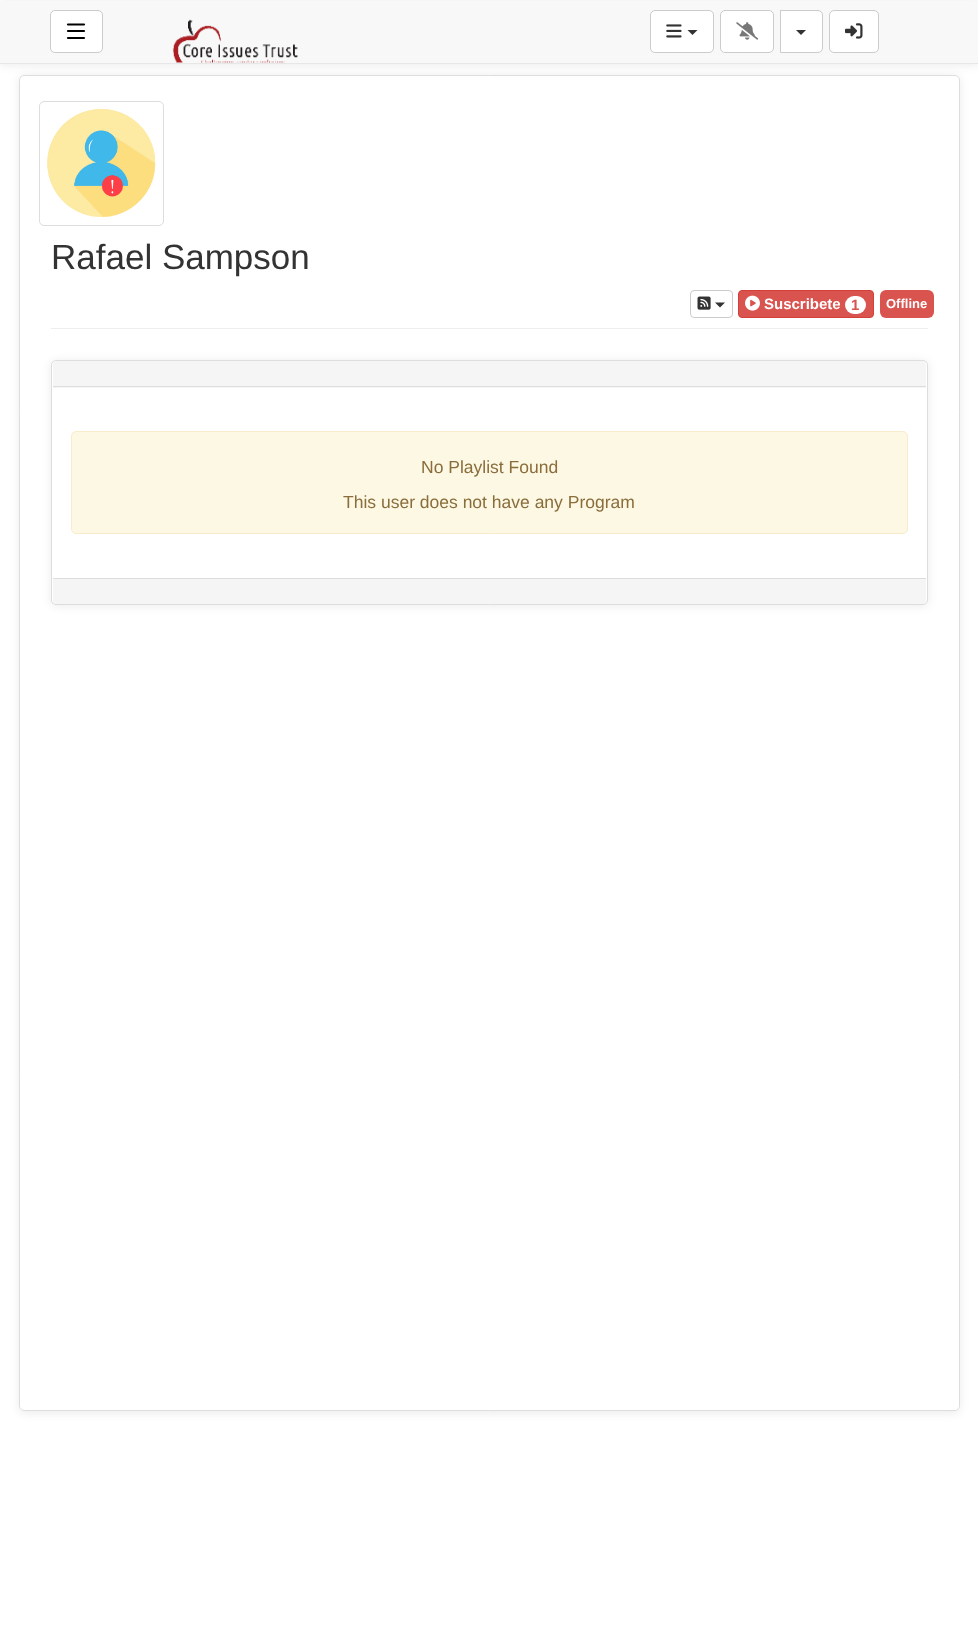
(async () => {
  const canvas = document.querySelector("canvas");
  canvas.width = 978;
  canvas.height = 1644;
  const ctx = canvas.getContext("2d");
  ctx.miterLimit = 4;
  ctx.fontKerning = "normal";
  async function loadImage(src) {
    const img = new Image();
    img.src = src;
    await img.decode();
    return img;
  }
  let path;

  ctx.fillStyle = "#ffffff";
  ctx.fillRect(0, 0, 978, 1644);
  ctx.save();
  path = new Path2D("M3 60H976V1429H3ZM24 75H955C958 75 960 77 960 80V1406C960 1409 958 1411 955 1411H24C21 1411 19 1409 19 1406V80C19 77 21 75 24 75Z");
  ctx.clip(path, "evenodd");
  ctx.fillStyle = "rgba(0, 0, 0, 0.08)";
  ctx.filter = "blur(5px)";
  ctx.beginPath();
  ctx.roundRect(19, 76, 941, 1337, 5);
  ctx.fill();
  ctx.filter = "none";
  ctx.restore();
  ctx.beginPath();
  ctx.roundRect(19.5, 75.5, 940, 1335, 4.5);
  ctx.strokeStyle = "#dddddd";
  ctx.stroke();
  ctx.fillStyle = "rgba(0, 0, 0, 0.08)";
  ctx.filter = "blur(5px)";
  ctx.beginPath();
  ctx.rect(0, 1, 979, 64);
  ctx.fill();
  ctx.filter = "none";
  ctx.fillStyle = "#f8f8f8";
  ctx.fillRect(0, 1, 978, 62);
  ctx.fillStyle = "#e7e7e7";
  ctx.fillRect(0, 63, 978, 1);
  ctx.fillStyle = "#ffffff";
  ctx.beginPath();
  ctx.roundRect(50.5, 10.5, 52, 42, 4.5);
  ctx.fill();
  ctx.strokeStyle = "#cccccc";
  ctx.stroke();
  path = new Path2D("M84 24.5H68M84 31H68M84 38H68");
  ctx.strokeStyle = "#000000";
  ctx.lineWidth = 2.2;
  ctx.lineCap = "round";
  ctx.stroke(path);
  ctx.drawImage(await loadImage("img/1.png"), 172, 19, 126, 44);
  ctx.beginPath();
  ctx.roundRect(650.5, 10.5, 63, 42, 4.5);
  ctx.fill();
  ctx.strokeStyle = "#cccccc";
  ctx.lineWidth = 1;
  ctx.stroke();
  ctx.drawImage(await loadImage("img/2.png"), 666, 24, 16, 14);
  ctx.fillStyle = "#333333";
  path = new Path2D("M687.5 30H697.5L692.5 35Z");
  ctx.fill(path);
  ctx.fillStyle = "#ffffff";
  ctx.beginPath();
  ctx.roundRect(720.5, 10.5, 53, 42, 4.5);
  ctx.fill();
  ctx.stroke();
  ctx.drawImage(await loadImage("img/3.png"), 736, 22, 23, 18);
  ctx.beginPath();
  ctx.roundRect(780.5, 10.5, 42, 42, [0, 4.5, 4.5, 0]);
  ctx.fill();
  ctx.stroke();
  ctx.fillStyle = "#333333";
  path = new Path2D("M796 30H806L801 35Z");
  ctx.fill(path);
  ctx.fillStyle = "#ffffff";
  ctx.beginPath();
  ctx.roundRect(829.5, 10.5, 49, 42, 4.5);
  ctx.fill();
  ctx.stroke();
  ctx.drawImage(await loadImage("img/4.png"), 845, 23, 18, 16);
  ctx.beginPath();
  ctx.roundRect(39.5, 101.5, 124, 124, 4.5);
  ctx.strokeStyle = "#dddddd";
  ctx.stroke();
  ctx.drawImage(await loadImage("img/5.png"), 47, 108, 109, 109);
  ctx.beginPath();
  ctx.roundRect(690.5, 290.5, 42, 27, 3.5);
  ctx.strokeStyle = "#cccccc";
  ctx.stroke();
  ctx.drawImage(await loadImage("img/6.png"), 697, 296, 14, 14);
  ctx.fillStyle = "#333333";
  path = new Path2D("M715 302.5H725L720 307.5Z");
  ctx.fill(path);
  ctx.fillStyle = "#d9534f";
  ctx.beginPath();
  ctx.roundRect(738.5, 290.5, 135, 27, 3.5);
  ctx.fill();
  ctx.strokeStyle = "#d43f3a";
  ctx.stroke();
  ctx.drawImage(await loadImage("img/7.png"), 745, 295, 15, 16);
  ctx.fillStyle = "#ffffff";
  ctx.beginPath();
  ctx.roundRect(845, 296, 21, 18, 9);
  ctx.fill();
  ctx.fillStyle = "#d9534f";
  ctx.beginPath();
  ctx.roundRect(880, 290, 54, 28, 6);
  ctx.fill();
  ctx.fillStyle = "#eeeeee";
  ctx.fillRect(51, 328, 877, 1);
  ctx.fillStyle = "rgba(0, 0, 0, 0.08)";
  ctx.filter = "blur(5px)";
  ctx.beginPath();
  ctx.roundRect(51, 361, 877, 245, 5);
  ctx.fill();
  ctx.filter = "none";
  ctx.fillStyle = "#ffffff";
  ctx.beginPath();
  ctx.roundRect(51.5, 360.5, 876, 244, 4.5);
  ctx.fill();
  ctx.strokeStyle = "#dddddd";
  ctx.stroke();
  ctx.fillStyle = "#f5f5f5";
  ctx.beginPath();
  ctx.roundRect(53, 361, 873, 27, [4, 4, 0, 0]);
  ctx.fill();
  ctx.fillStyle = "#dddddd";
  ctx.fillRect(53, 386, 873, 1);
  ctx.fillStyle = "#fcf8e3";
  ctx.beginPath();
  ctx.roundRect(71.5, 431.5, 836, 102, 4.5);
  ctx.fill();
  ctx.strokeStyle = "#faebcc";
  ctx.stroke();
  ctx.fillStyle = "#f5f5f5";
  ctx.beginPath();
  ctx.roundRect(53, 578, 873, 26, [0, 0, 4, 4]);
  ctx.fill();
  ctx.fillStyle = "#dddddd";
  ctx.fillRect(53, 578, 873, 1);
  ctx.font = "35px Liberation Sans";
  ctx.fillStyle = "#333333";
  ctx.fillText("Rafael Sampson", 51, 269);
  ctx.font = "bold 15px Liberation Sans";
  ctx.fillStyle = "#ffffff";
  ctx.fillText("Suscribete", 764, 309);
  ctx.fillStyle = "#d9534f";
  ctx.fillText("1", 851, 310);
  ctx.font = "bold 13px Liberation Sans";
  ctx.fillStyle = "#ffffff";
  ctx.fillText("Offline", 886, 308);
  ctx.font = "17.5px Liberation Sans";
  ctx.fillStyle = "#8a6d3b";
  ctx.fillText("No Playlist Found", 421, 473);
  ctx.fillText("This user does not have any Program", 343, 508);
})();
